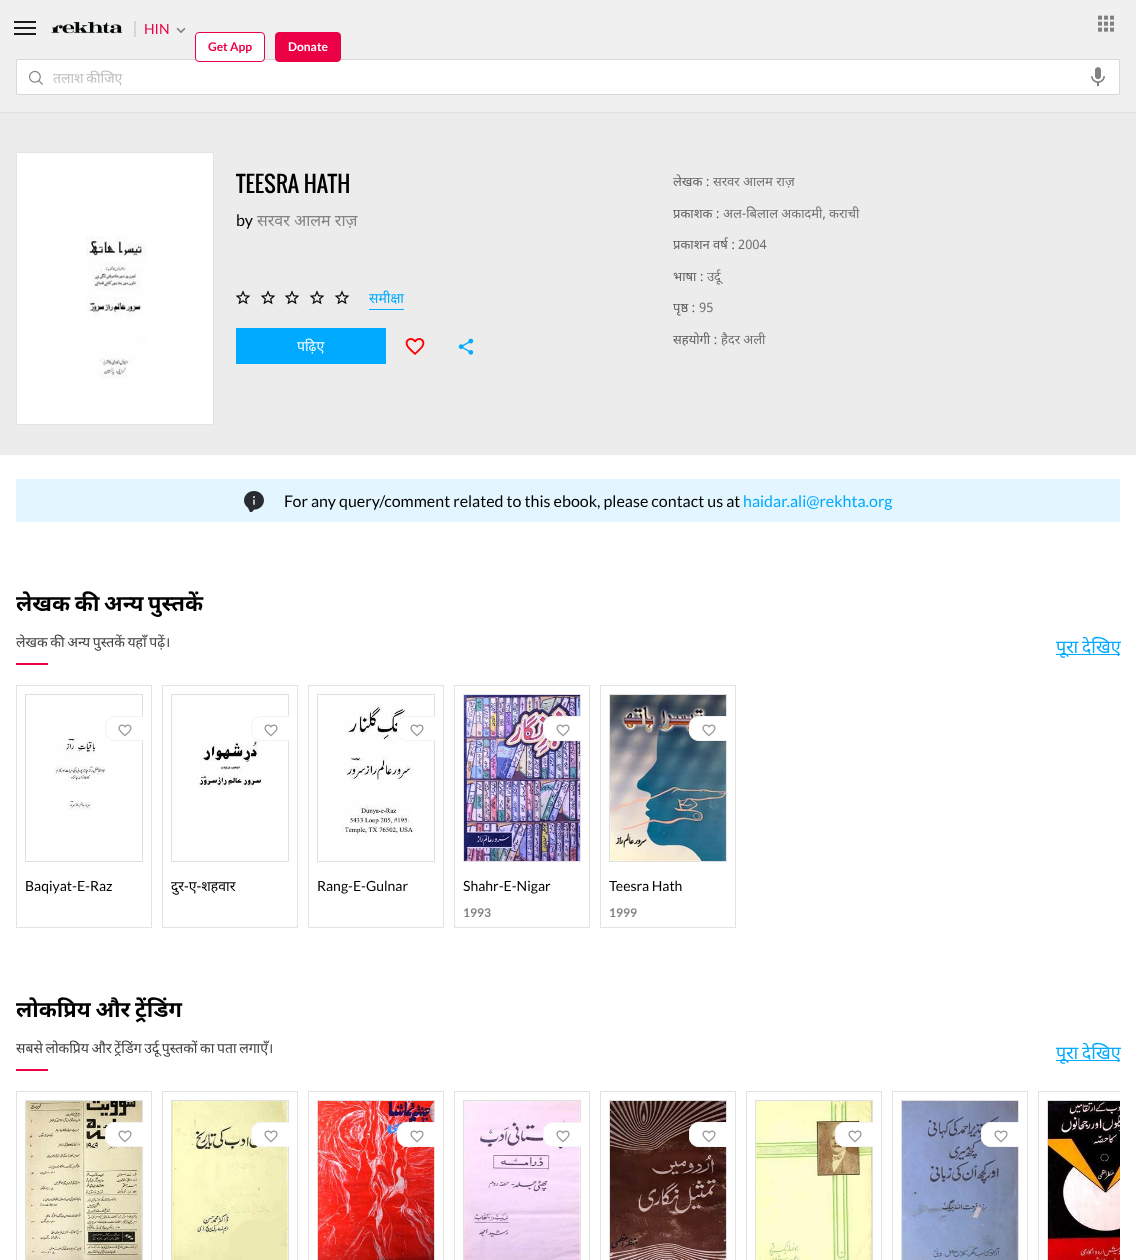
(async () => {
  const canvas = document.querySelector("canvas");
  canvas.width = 1136;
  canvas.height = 1260;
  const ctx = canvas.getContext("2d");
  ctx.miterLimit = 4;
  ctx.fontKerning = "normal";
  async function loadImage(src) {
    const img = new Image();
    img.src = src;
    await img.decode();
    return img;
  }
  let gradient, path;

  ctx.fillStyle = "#ffffff";
  ctx.fillRect(0, 0, 1136, 1260);
  ctx.fillStyle = "#ececec";
  ctx.fillRect(0, 112, 1136, 343);
  ctx.fillStyle = "#cccccc";
  ctx.filter = "blur(1px)";
  ctx.beginPath();
  ctx.rect(0, 0, 1136, 112);
  ctx.fill();
  ctx.filter = "none";
  for (const [x, y, w, h, color] of [
    [0, 0, 1136, 112, "#f0f0f0"],
    [14, 21, 22, 2, "#1a1a1a"],
    [14, 27, 22, 2, "#1a1a1a"],
    [14, 33, 22, 2, "#1a1a1a"],
  ]) {
    ctx.fillStyle = color;
    ctx.fillRect(x, y, w, h);
  }
  ctx.drawImage(await loadImage("img/1.png"), 51, 22, 71, 12);
  ctx.fillStyle = "#d6d6d6";
  ctx.fillRect(134, 21, 2, 16);
  ctx.drawImage(await loadImage("img/2.png"), 176, 27, 10, 7);
  ctx.drawImage(await loadImage("img/3.png"), 1098, 15, 16, 17);
  ctx.fillStyle = "#ffffff";
  ctx.beginPath();
  ctx.roundRect(16.5, 59.5, 1103, 35, 1.5);
  ctx.fill();
  ctx.strokeStyle = "#d7d7d7";
  ctx.stroke();
  ctx.beginPath();
  ctx.roundRect(195.5, 32.5, 69, 29, 3.5);
  ctx.fill();
  ctx.strokeStyle = "#eb0046";
  ctx.stroke();
  ctx.fillStyle = "#eb0046";
  ctx.beginPath();
  ctx.roundRect(275.5, 32.5, 65, 29, 3.5);
  ctx.fill();
  ctx.stroke();
  ctx.drawImage(await loadImage("img/4.png"), 29, 70, 14, 15);
  ctx.drawImage(await loadImage("img/5.png"), 1091, 67, 14, 20);
  ctx.fillStyle = "#ffffff";
  ctx.beginPath();
  ctx.rect(16.5, 152.5, 197, 272);
  ctx.fill();
  ctx.strokeStyle = "#e4e3e3";
  ctx.stroke();
  ctx.drawImage(await loadImage("img/6.png"), 86, 236, 61, 143);
  ctx.drawImage(await loadImage("img/7.png"), 235, 290, 16, 15);
  ctx.drawImage(await loadImage("img/7.png"), 260, 290, 16, 15);
  ctx.drawImage(await loadImage("img/7.png"), 284, 290, 16, 15);
  ctx.drawImage(await loadImage("img/7.png"), 309, 290, 16, 15);
  ctx.drawImage(await loadImage("img/7.png"), 334, 290, 16, 15);
  ctx.fillStyle = "#00aaff";
  ctx.fillRect(369, 309, 35, 1);
  ctx.fillRect(236, 328, 150, 36);
  ctx.drawImage(await loadImage("img/8.png"), 405, 338, 20, 17);
  ctx.drawImage(await loadImage("img/9.png"), 458, 338, 16, 17);
  ctx.fillStyle = "#e3f6ff";
  ctx.fillRect(16, 479, 1104, 43);
  ctx.drawImage(await loadImage("img/10.png"), 244, 491, 20, 21);
  ctx.fillStyle = "#00aaff";
  ctx.fillRect(1056, 654, 64, 1);
  ctx.fillStyle = "#ec0046";
  ctx.fillRect(16, 663, 32, 2);
  ctx.strokeRect(16.5, 685.5, 135, 242);
  ctx.strokeStyle = "#e0e0e0";
  ctx.strokeRect(25.5, 694.5, 117, 167);
  ctx.drawImage(await loadImage("img/11.png"), 54, 737, 52, 73);
  ctx.fillStyle = "#ffffff";
  ctx.beginPath();
  ctx.roundRect(105, 716, 38, 25, [10, 0, 0, 10]);
  ctx.fill();
  ctx.fillStyle = "#f3f3f3";
  path = new Path2D("M115 716H143V741H115C109.5 741 105 736.5 105 731V726C105 720.5 109.5 716 115 716ZM115 717H143V740H115C110 740 106 736 106 731V726C106 721 110 717 115 717Z");
  ctx.fill(path, "evenodd");
  ctx.drawImage(await loadImage("img/12.png"), 118, 724, 14, 13);
  ctx.strokeStyle = "#e4e3e3";
  ctx.strokeRect(162.5, 685.5, 135, 242);
  ctx.strokeStyle = "#e0e0e0";
  ctx.strokeRect(171.5, 694.5, 117, 167);
  ctx.drawImage(await loadImage("img/13.png"), 197, 739, 65, 49);
  ctx.fillStyle = "#ffffff";
  ctx.beginPath();
  ctx.roundRect(251, 716, 38, 25, [10, 0, 0, 10]);
  ctx.fill();
  ctx.fillStyle = "#f3f3f3";
  path = new Path2D("M261 716H289V741H261C255.5 741 251 736.5 251 731V726C251 720.5 255.5 716 261 716ZM261 717H289V740H261C256 740 252 736 252 731V726C252 721 256 717 261 717Z");
  ctx.fill(path, "evenodd");
  ctx.drawImage(await loadImage("img/12.png"), 264, 724, 14, 13);
  ctx.strokeStyle = "#e4e3e3";
  ctx.strokeRect(308.5, 685.5, 135, 242);
  ctx.strokeStyle = "#e0e0e0";
  ctx.strokeRect(317.5, 694.5, 117, 167);
  ctx.drawImage(await loadImage("img/14.png"), 341, 704, 73, 133);
  ctx.fillStyle = "#ffffff";
  ctx.beginPath();
  ctx.roundRect(397, 716, 38, 25, [10, 0, 0, 10]);
  ctx.fill();
  ctx.fillStyle = "#f3f3f3";
  path = new Path2D("M407 716H435V741H407C401.5 741 397 736.5 397 731V726C397 720.5 401.5 716 407 716ZM407 717H435V740H407C402 740 398 736 398 731V726C398 721 402 717 407 717Z");
  ctx.fill(path, "evenodd");
  ctx.drawImage(await loadImage("img/12.png"), 410, 724, 14, 13);
  ctx.strokeStyle = "#e4e3e3";
  ctx.strokeRect(454.5, 685.5, 135, 242);
  ctx.strokeStyle = "#e0e0e0";
  ctx.strokeRect(463.5, 694.5, 117, 167);
  ctx.drawImage(await loadImage("img/15.png"), 464, 695, 116, 166);
  ctx.fillStyle = "#ffffff";
  ctx.beginPath();
  ctx.roundRect(543, 716, 38, 25, [10, 0, 0, 10]);
  ctx.fill();
  ctx.fillStyle = "#f3f3f3";
  path = new Path2D("M553 716H581V741H553C547.5 741 543 736.5 543 731V726C543 720.5 547.5 716 553 716ZM553 717H581V740H553C548 740 544 736 544 731V726C544 721 548 717 553 717Z");
  ctx.fill(path, "evenodd");
  ctx.drawImage(await loadImage("img/12.png"), 556, 724, 14, 13);
  ctx.strokeStyle = "#e4e3e3";
  ctx.strokeRect(600.5, 685.5, 135, 242);
  ctx.strokeStyle = "#e0e0e0";
  ctx.strokeRect(609.5, 694.5, 117, 167);
  ctx.drawImage(await loadImage("img/16.png"), 610, 695, 116, 166);
  ctx.fillStyle = "#ffffff";
  ctx.beginPath();
  ctx.roundRect(689, 716, 38, 25, [10, 0, 0, 10]);
  ctx.fill();
  ctx.fillStyle = "#f3f3f3";
  path = new Path2D("M699 716H727V741H699C693.5 741 689 736.5 689 731V726C689 720.5 693.5 716 699 716ZM699 717H727V740H699C694 740 690 736 690 731V726C690 721 694 717 699 717Z");
  ctx.fill(path, "evenodd");
  ctx.drawImage(await loadImage("img/12.png"), 702, 724, 14, 13);
  ctx.fillStyle = "#00aaff";
  ctx.fillRect(1056, 1060, 64, 1);
  ctx.fillStyle = "#ec0046";
  ctx.fillRect(16, 1069, 32, 2);
  ctx.strokeStyle = "#e4e3e3";
  ctx.strokeRect(16.5, 1091.5, 135, 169);
  ctx.strokeStyle = "#e0e0e0";
  ctx.strokeRect(25.5, 1100.5, 117, 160);
  ctx.drawImage(await loadImage("img/17.png"), 26, 1101, 116, 159);
  ctx.fillStyle = "#ffffff";
  ctx.beginPath();
  ctx.roundRect(105, 1122, 38, 25, [10, 0, 0, 10]);
  ctx.fill();
  ctx.fillStyle = "#f3f3f3";
  path = new Path2D("M115 1122H143V1147H115C109.5 1147 105 1142.5 105 1137V1132C105 1126.5 109.5 1122 115 1122ZM115 1123H143V1146H115C110 1146 106 1142 106 1137V1132C106 1127 110 1123 115 1123Z");
  ctx.fill(path, "evenodd");
  ctx.drawImage(await loadImage("img/12.png"), 118, 1130, 14, 13);
  ctx.strokeStyle = "#e4e3e3";
  ctx.strokeRect(162.5, 1091.5, 135, 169);
  ctx.strokeStyle = "#e0e0e0";
  ctx.strokeRect(171.5, 1100.5, 117, 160);
  ctx.drawImage(await loadImage("img/18.png"), 172, 1101, 116, 159);
  ctx.fillStyle = "#ffffff";
  ctx.beginPath();
  ctx.roundRect(251, 1122, 38, 25, [10, 0, 0, 10]);
  ctx.fill();
  ctx.fillStyle = "#f3f3f3";
  path = new Path2D("M261 1122H289V1147H261C255.5 1147 251 1142.5 251 1137V1132C251 1126.5 255.5 1122 261 1122ZM261 1123H289V1146H261C256 1146 252 1142 252 1137V1132C252 1127 256 1123 261 1123Z");
  ctx.fill(path, "evenodd");
  ctx.drawImage(await loadImage("img/12.png"), 264, 1130, 14, 13);
  ctx.strokeStyle = "#e4e3e3";
  ctx.strokeRect(308.5, 1091.5, 135, 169);
  ctx.strokeStyle = "#e0e0e0";
  ctx.strokeRect(317.5, 1100.5, 117, 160);
  ctx.drawImage(await loadImage("img/19.png"), 318, 1101, 116, 159);
  ctx.fillStyle = "#ffffff";
  ctx.beginPath();
  ctx.roundRect(397, 1122, 38, 25, [10, 0, 0, 10]);
  ctx.fill();
  ctx.fillStyle = "#f3f3f3";
  path = new Path2D("M407 1122H435V1147H407C401.5 1147 397 1142.5 397 1137V1132C397 1126.5 401.5 1122 407 1122ZM407 1123H435V1146H407C402 1146 398 1142 398 1137V1132C398 1127 402 1123 407 1123Z");
  ctx.fill(path, "evenodd");
  ctx.drawImage(await loadImage("img/12.png"), 410, 1130, 14, 13);
  ctx.strokeStyle = "#e4e3e3";
  ctx.strokeRect(454.5, 1091.5, 135, 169);
  ctx.strokeStyle = "#e0e0e0";
  ctx.strokeRect(463.5, 1100.5, 117, 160);
  ctx.drawImage(await loadImage("img/20.png"), 464, 1101, 116, 159);
  ctx.fillStyle = "#ffffff";
  ctx.beginPath();
  ctx.roundRect(543, 1122, 38, 25, [10, 0, 0, 10]);
  ctx.fill();
  ctx.fillStyle = "#f3f3f3";
  path = new Path2D("M553 1122H581V1147H553C547.5 1147 543 1142.5 543 1137V1132C543 1126.5 547.5 1122 553 1122ZM553 1123H581V1146H553C548 1146 544 1142 544 1137V1132C544 1127 548 1123 553 1123Z");
  ctx.fill(path, "evenodd");
  ctx.drawImage(await loadImage("img/12.png"), 556, 1130, 14, 13);
  ctx.strokeStyle = "#e4e3e3";
  ctx.strokeRect(600.5, 1091.5, 135, 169);
  ctx.strokeStyle = "#e0e0e0";
  ctx.strokeRect(609.5, 1100.5, 117, 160);
  ctx.drawImage(await loadImage("img/21.png"), 610, 1101, 116, 159);
  ctx.fillStyle = "#ffffff";
  ctx.beginPath();
  ctx.roundRect(689, 1122, 38, 25, [10, 0, 0, 10]);
  ctx.fill();
  ctx.fillStyle = "#f3f3f3";
  path = new Path2D("M699 1122H727V1147H699C693.5 1147 689 1142.5 689 1137V1132C689 1126.5 693.5 1122 699 1122ZM699 1123H727V1146H699C694 1146 690 1142 690 1137V1132C690 1127 694 1123 699 1123Z");
  ctx.fill(path, "evenodd");
  ctx.drawImage(await loadImage("img/12.png"), 702, 1130, 14, 13);
  ctx.strokeStyle = "#e4e3e3";
  ctx.strokeRect(746.5, 1091.5, 135, 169);
  ctx.strokeStyle = "#e0e0e0";
  ctx.strokeRect(755.5, 1100.5, 117, 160);
  ctx.drawImage(await loadImage("img/22.png"), 756, 1101, 116, 159);
  ctx.fillStyle = "#ffffff";
  ctx.beginPath();
  ctx.roundRect(835, 1122, 38, 25, [10, 0, 0, 10]);
  ctx.fill();
  ctx.fillStyle = "#f3f3f3";
  path = new Path2D("M845 1122H873V1147H845C839.5 1147 835 1142.5 835 1137V1132C835 1126.5 839.5 1122 845 1122ZM845 1123H873V1146H845C840 1146 836 1142 836 1137V1132C836 1127 840 1123 845 1123Z");
  ctx.fill(path, "evenodd");
  ctx.drawImage(await loadImage("img/12.png"), 848, 1130, 14, 13);
  ctx.strokeStyle = "#e4e3e3";
  ctx.strokeRect(892.5, 1091.5, 135, 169);
  ctx.strokeStyle = "#e0e0e0";
  ctx.strokeRect(901.5, 1100.5, 117, 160);
  ctx.drawImage(await loadImage("img/23.png"), 902, 1101, 116, 159);
  ctx.fillStyle = "#ffffff";
  ctx.beginPath();
  ctx.roundRect(981, 1122, 38, 25, [10, 0, 0, 10]);
  ctx.fill();
  ctx.fillStyle = "#f3f3f3";
  path = new Path2D("M991 1122H1019V1147H991C985.5 1147 981 1142.5 981 1137V1132C981 1126.5 985.5 1122 991 1122ZM991 1123H1019V1146H991C986 1146 982 1142 982 1137V1132C982 1127 986 1123 991 1123Z");
  ctx.fill(path, "evenodd");
  ctx.drawImage(await loadImage("img/12.png"), 994, 1130, 14, 13);
  ctx.save();
  ctx.beginPath();
  ctx.rect(16, 1091, 1104, 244);
  ctx.clip();
  ctx.strokeStyle = "#e4e3e3";
  ctx.strokeRect(1038.5, 1091.5, 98, 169);
  ctx.strokeStyle = "#e0e0e0";
  ctx.strokeRect(1047.5, 1100.5, 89, 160);
  ctx.restore();
  ctx.drawImage(await loadImage("img/24.png"), 1048, 1101, 72, 159);
  ctx.font = "14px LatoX";
  ctx.fillStyle = "#eb0046";
  ctx.fillText("HIN", 144, 34);
  ctx.font = "bold 12px LatoX";
  ctx.fillText("Get App", 208, 51);
  ctx.fillStyle = "#ffffff";
  ctx.fillText("Donate", 288, 51);
  ctx.wordSpacing = "-1px";
  ctx.font = "14px Noto Sans Devanagari";
  ctx.fillStyle = "#bebebe";
  ctx.fillText("तलाश कीजिए", 53, 83);
  ctx.wordSpacing = "0px";
  ctx.font = "22px Oswald";
  ctx.fillStyle = "#000000";
  ctx.fillText("TEESRA HATH", 236, 193);
  ctx.font = "16px LatoX";
  ctx.fillText("by", 236, 226);
  ctx.font = "16px Noto Sans Devanagari";
  ctx.fillStyle = "#838383";
  ctx.fillText("सरवर आलम राज़", 257, 226);
  ctx.font = "14px Noto Sans Devanagari";
  ctx.fillStyle = "#00aaff";
  ctx.fillText("समीक्षा", 369, 303);
  ctx.fillStyle = "#ffffff";
  ctx.fillText("पढ़िए", 297, 351);
  ctx.font = "13px Noto Sans Devanagari";
  ctx.fillStyle = "#606060";
  ctx.fillText("लेखक :", 673, 186);
  ctx.fillStyle = "#707070";
  ctx.fillText("सरवर आलम राज़", 713, 186);
  ctx.fillStyle = "#606060";
  ctx.fillText("प्रकाशक :", 673, 218);
  ctx.fillStyle = "#707070";
  ctx.fillText("अल-बिलाल अकादमी, कराची", 723, 218);
  ctx.fillStyle = "#606060";
  ctx.fillText("प्रकाशन वर्ष :", 673, 249);
  ctx.fillStyle = "#707070";
  ctx.fillText("2004", 738, 249);
  ctx.fillStyle = "#606060";
  ctx.fillText("भाषा :", 673, 281);
  ctx.fillStyle = "#707070";
  ctx.fillText("उर्दू", 707, 281);
  ctx.fillStyle = "#606060";
  ctx.fillText("पृष्ठ :", 673, 312);
  ctx.fillStyle = "#707070";
  ctx.fillText("95", 699, 312);
  ctx.fillStyle = "#606060";
  ctx.fillText("सहयोगी :", 673, 344);
  ctx.fillStyle = "#707070";
  ctx.fillText("हैदर अली", 721, 344);
  ctx.font = "16px LatoX";
  ctx.fillStyle = "#000000";
  ctx.fillText("For any query/comment related to this ebook, please contact us at", 284, 507);
  ctx.fillStyle = "#00aaff";
  ctx.fillText("haidar.ali@rekhta.org", 743, 507);
  ctx.wordSpacing = "-1px";
  ctx.font = "bold 22px Noto Sans Devanagari";
  ctx.fillStyle = "#000000";
  ctx.fillText("लेखक की अन्य पुस्तकें", 16, 611);
  ctx.font = "14px Noto Sans Devanagari";
  ctx.fillStyle = "#404040";
  ctx.fillText("लेखक की अन्य पुस्तकें यहाँ पढ़ें।", 16, 647);
  ctx.font = "18px Noto Sans Devanagari";
  ctx.fillStyle = "#00aaff";
  ctx.fillText("पूरा देखिए", 1056, 653);
  ctx.wordSpacing = "0px";
  ctx.font = "14px LatoX";
  ctx.fillStyle = "#000000";
  ctx.fillText("Baqiyat-E-Raz", 25, 891);
  ctx.font = "14px Noto Sans Devanagari";
  ctx.fillText("दुर-ए-शहवार", 171, 891);
  ctx.font = "14px LatoX";
  ctx.fillText("Rang-E-Gulnar", 317, 891);
  gradient = ctx.createLinearGradient(403, 886, 435, 886);
  gradient.addColorStop(0, "rgba(255, 255, 255, 0)");
  gradient.addColorStop(1, "#ffffff");
  ctx.fillStyle = gradient;
  ctx.fillRect(404, 883, 4, 8);
  ctx.fillStyle = "#000000";
  ctx.fillText("Shahr-E-Nigar", 463, 891);
  gradient = ctx.createLinearGradient(549, 886, 581, 886);
  gradient.addColorStop(0, "rgba(255, 255, 255, 0)");
  gradient.addColorStop(1, "#ffffff");
  ctx.fillStyle = gradient;
  ctx.fillRect(550, 884, 1, 1);
  ctx.font = "bold 12px LatoX";
  ctx.fillStyle = "#838383";
  ctx.fillText("1993", 463, 917);
  ctx.font = "14px LatoX";
  ctx.fillStyle = "#000000";
  ctx.fillText("Teesra Hath", 609, 891);
  ctx.font = "bold 12px LatoX";
  ctx.fillStyle = "#838383";
  ctx.fillText("1999", 609, 917);
  ctx.wordSpacing = "-1px";
  ctx.font = "bold 22px Noto Sans Devanagari";
  ctx.fillStyle = "#000000";
  ctx.fillText("लोकप्रिय और ट्रेंडिंग", 16, 1017);
  ctx.font = "14px Noto Sans Devanagari";
  ctx.fillStyle = "#404040";
  ctx.fillText("सबसे लोकप्रिय और ट्रेंडिंग उर्दू पुस्तकों का पता लगाएँ।", 16, 1053);
  ctx.font = "18px Noto Sans Devanagari";
  ctx.fillStyle = "#00aaff";
  ctx.fillText("पूरा देखिए", 1056, 1059);
})();
